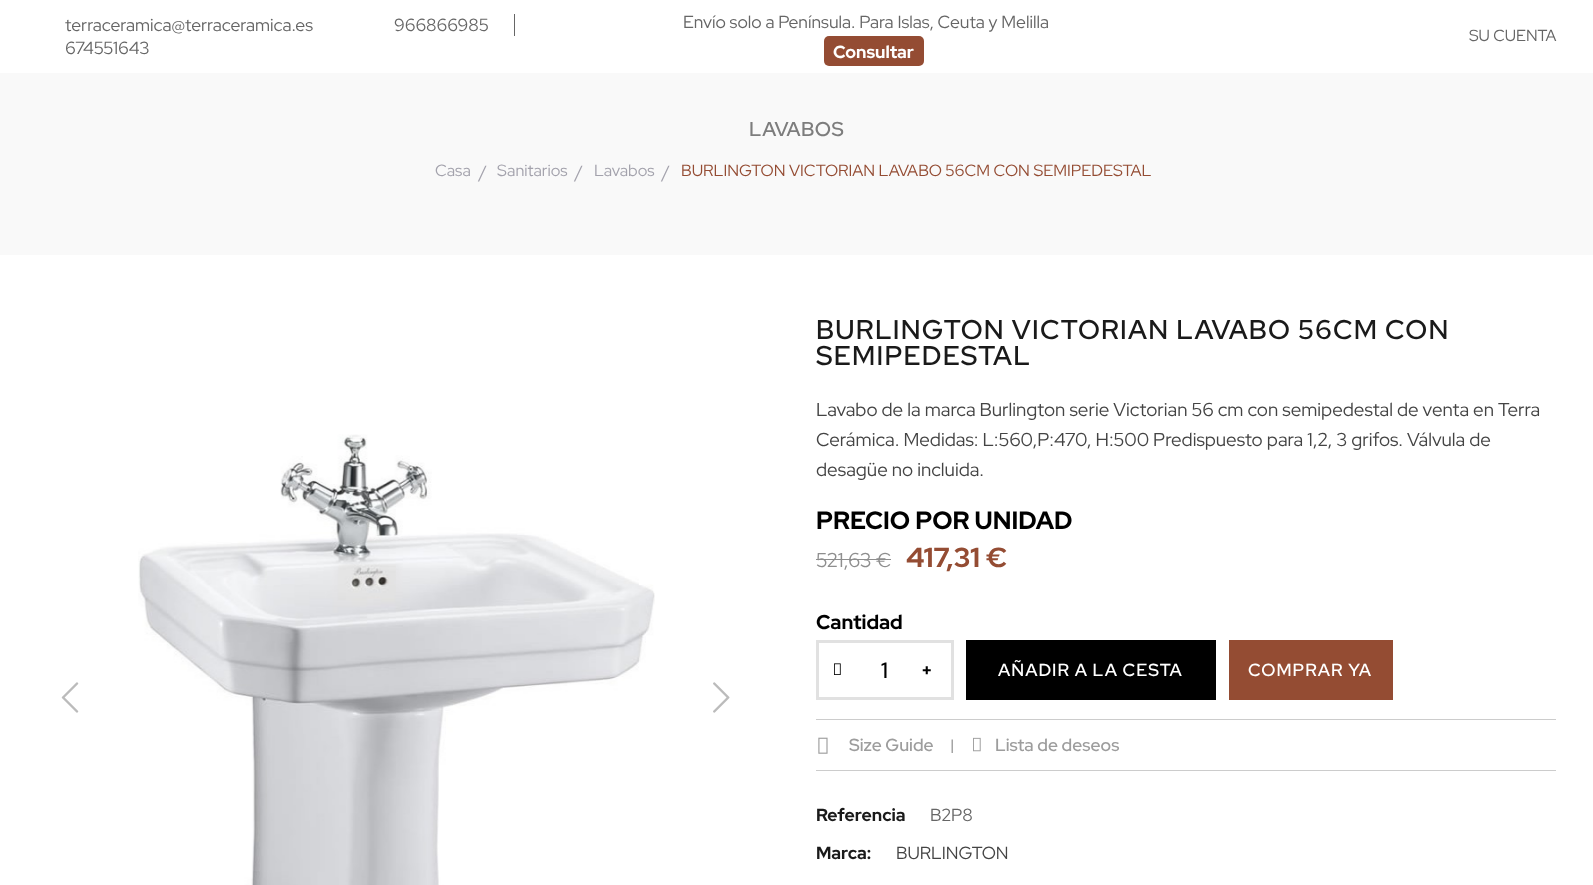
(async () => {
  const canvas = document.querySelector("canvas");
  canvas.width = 1593;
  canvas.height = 885;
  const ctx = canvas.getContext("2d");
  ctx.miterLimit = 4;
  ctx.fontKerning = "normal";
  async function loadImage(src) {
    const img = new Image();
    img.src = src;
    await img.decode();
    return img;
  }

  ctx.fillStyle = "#ffffff";
  ctx.fillRect(0, 0, 1593, 885);
  ctx.fillStyle = "#666666";
  ctx.fillRect(514, 14, 1, 22);
  ctx.fillStyle = "#944c33";
  ctx.beginPath();
  ctx.roundRect(824, 36, 100, 30, 5);
  ctx.fill();
  ctx.fillStyle = "#f9f9f9";
  ctx.fillRect(0, 73, 1593, 182);
  ctx.drawImage(await loadImage("img/1.png"), 138, 434, 517, 451);
  ctx.drawImage(await loadImage("img/2.png"), 61, 682, 18, 31);
  ctx.drawImage(await loadImage("img/3.png"), 713, 682, 17, 31);
  ctx.fillStyle = "#8e8e8e";
  ctx.fillRect(816, 559, 75, 1);
  ctx.strokeStyle = "#e1e1e1";
  ctx.lineWidth = 3;
  ctx.strokeRect(817.5, 641.5, 135, 57);
  ctx.drawImage(await loadImage("img/4.png"), 834, 663, 7, 12);
  for (const [x, y, w, h, color] of [
    [966, 640, 250, 60, "#000000"],
    [1229, 640, 164, 60, "#944c33"],
    [816, 719, 740, 1, "#cccccc"],
    [816, 770, 740, 1, "#cccccc"],
  ]) {
    ctx.fillStyle = color;
    ctx.fillRect(x, y, w, h);
  }
  ctx.drawImage(await loadImage("img/5.png"), 818, 737, 10, 17);
  ctx.drawImage(await loadImage("img/6.png"), 973, 737, 8, 15);
  ctx.font = "17.5px Red Hat Display";
  ctx.fillStyle = "#666666";
  for (const [text, x, y] of [
    ["terraceramica@terraceramica.es", 65, 31],
    ["966866985", 394, 31],
    ["674551643", 65, 54],
    ["Envío solo a Península. Para Islas, Ceuta y Melilla", 683, 28],
  ]) {
    ctx.fillText(text, x, y);
  }
  ctx.font = "bold 17.5px Red Hat Display";
  ctx.fillStyle = "#ffffff";
  ctx.fillText("Consultar", 833, 58);
  ctx.font = "16px Red Hat Display";
  ctx.fillStyle = "#666666";
  ctx.fillText("SU CUENTA", 1469, 41);
  ctx.letterSpacing = "0.5px";
  ctx.font = "500 20px Red Hat Display";
  ctx.fillStyle = "#7d7d7d";
  ctx.fillText("LAVABOS", 749, 136);
  ctx.letterSpacing = "0px";
  ctx.font = "16.25px Red Hat Display";
  ctx.fillStyle = "#a3a2ac";
  ctx.fillText("Casa", 435, 176);
  ctx.font = "17.5px Red Hat Display";
  ctx.fillText("/", 479, 178);
  ctx.font = "16.25px Red Hat Display";
  ctx.fillText("Sanitarios", 497, 176);
  ctx.font = "17.5px Red Hat Display";
  ctx.fillText("/", 575, 178);
  ctx.font = "16.25px Red Hat Display";
  ctx.fillText("Lavabos", 594, 176);
  ctx.font = "17.5px Red Hat Display";
  ctx.fillText("/", 662, 178);
  ctx.font = "16.25px Red Hat Display";
  ctx.fillStyle = "#944c33";
  ctx.fillText("BURLINGTON VICTORIAN LAVABO 56CM CON SEMIPEDESTAL", 681, 176);
  ctx.letterSpacing = "1.25px";
  ctx.font = "600 27px Red Hat Display";
  ctx.fillStyle = "#1a1a1a";
  ctx.fillText("BURLINGTON VICTORIAN LAVABO 56CM CON", 816, 339);
  ctx.fillText("SEMIPEDESTAL", 816, 365);
  ctx.letterSpacing = "0px";
  ctx.font = "18.75px Red Hat Display";
  ctx.fillStyle = "#444444";
  for (const [text, x, y] of [
    ["Lavabo de la marca Burlington serie Victorian 56 cm con semipedestal de venta en Terra", 816, 416],
    ["Cerámica. Medidas: L:560,P:470, H:500 Predispuesto para 1,2, 3 grifos. Válvula de", 816, 446],
    ["desagüe no incluida.", 816, 476],
  ]) {
    ctx.fillText(text, x, y);
  }
  ctx.font = "bold 25px Red Hat Display";
  ctx.fillStyle = "#000000";
  ctx.fillText("PRECIO POR UNIDAD", 816, 529);
  ctx.font = "20px Red Hat Display";
  ctx.fillStyle = "#8e8e8e";
  ctx.fillText("521,63 €", 816, 567);
  ctx.font = "bold 27.5px Red Hat Display";
  ctx.fillStyle = "#944c33";
  ctx.fillText("417,31 €", 906, 567);
  ctx.font = "bold 20px Red Hat Display";
  ctx.fillStyle = "#000000";
  ctx.fillText("Cantidad", 816, 629);
  ctx.font = "500 22px Red Hat Display";
  ctx.fillText("1", 881, 678);
  ctx.font = "900 16.25px Noto Sans";
  ctx.fillText("+", 922, 676);
  ctx.letterSpacing = "1px";
  ctx.font = "500 17.5px Red Hat Display";
  ctx.fillStyle = "#ffffff";
  ctx.fillText("AÑADIR A LA CESTA", 998, 676);
  ctx.fillText("COMPRAR YA", 1248, 676);
  ctx.letterSpacing = "0px";
  ctx.fillStyle = "#9d9d9d";
  ctx.fillText("Size Guide", 849, 751);
  ctx.font = "600 15px Red Hat Display";
  ctx.fillText("|", 950, 750);
  ctx.font = "500 17.5px Red Hat Display";
  ctx.fillText("Lista de deseos", 995, 751);
  ctx.font = "bold 17.5px Red Hat Display";
  ctx.fillStyle = "#1a1a1a";
  ctx.fillText("Referencia", 816, 821);
  ctx.font = "17.5px Red Hat Display";
  ctx.fillStyle = "#666666";
  ctx.fillText("B2P8", 930, 821);
  ctx.font = "bold 17.5px Red Hat Display";
  ctx.fillStyle = "#1a1a1a";
  ctx.fillText("Marca:", 816, 859);
  ctx.font = "17.5px Red Hat Display";
  ctx.fillStyle = "#444444";
  ctx.fillText("BURLINGTON", 896, 859);
})();
